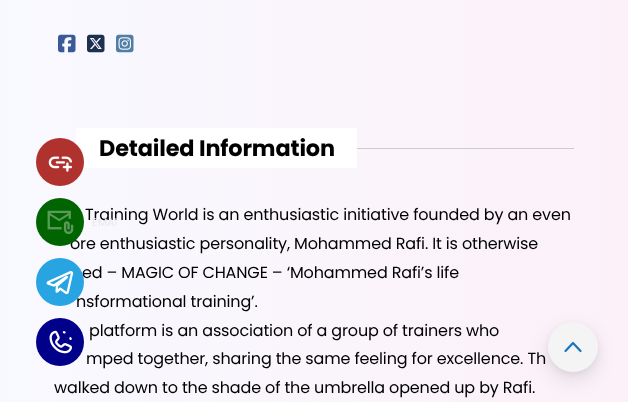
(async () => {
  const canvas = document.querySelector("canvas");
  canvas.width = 628;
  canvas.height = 402;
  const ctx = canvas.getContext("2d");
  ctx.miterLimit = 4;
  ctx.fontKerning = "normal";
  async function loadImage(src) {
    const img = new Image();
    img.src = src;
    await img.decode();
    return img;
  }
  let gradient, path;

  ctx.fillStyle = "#ffffff";
  ctx.fillRect(0, 0, 628, 402);
  gradient = ctx.createLinearGradient(0, 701, 628, 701);
  gradient.addColorStop(0, "#f8f9ff");
  gradient.addColorStop(1, "#fcf1f8");
  ctx.fillStyle = gradient;
  ctx.fillRect(0, 0, 628, 402);
  ctx.drawImage(await loadImage("img/1.png"), 58, 34, 18, 19);
  ctx.drawImage(await loadImage("img/2.png"), 87, 34, 18, 19);
  ctx.drawImage(await loadImage("img/3.png"), 116, 34, 18, 19);
  ctx.fillStyle = "#ffffff";
  ctx.fillRect(76, 128, 281, 40);
  ctx.fillStyle = "#cccccc";
  ctx.fillRect(357, 148, 217, 1);
  ctx.fillStyle = "#af322e";
  ctx.beginPath();
  ctx.arc(60, 162, 24, 0, Math.PI * 2);
  ctx.fill();
  ctx.drawImage(await loadImage("img/4.png"), 48, 156, 24, 16);
  ctx.fillStyle = "#00008b";
  ctx.beginPath();
  ctx.arc(60, 342, 24, 0, Math.PI * 2);
  ctx.fill();
  ctx.drawImage(await loadImage("img/7.png"), 49, 330, 23, 24);
  ctx.fillStyle = "rgba(0, 0, 0, 0.1)";
  ctx.filter = "blur(9.5px)";
  ctx.beginPath();
  ctx.roundRect(548, 330, 50, 50, 25);
  ctx.fill();
  ctx.filter = "none";
  ctx.fillStyle = "rgba(0, 0, 0, 0.05)";
  ctx.filter = "blur(3px)";
  ctx.beginPath();
  ctx.roundRect(548, 324, 50, 50, 25);
  ctx.fill();
  ctx.filter = "none";
  ctx.fillStyle = "#f4f4f5";
  ctx.beginPath();
  ctx.arc(573, 347, 25, 0, Math.PI * 2);
  ctx.fill();
  path = new Path2D("M565.5 351L573 343L580.5 351");
  ctx.strokeStyle = "#1e73be";
  ctx.lineWidth = 2.2;
  ctx.lineCap = "round";
  ctx.lineJoin = "round";
  ctx.stroke(path);
  ctx.letterSpacing = "-0.15px";
  ctx.font = "bold 22.4px Poppins";
  ctx.fillStyle = "#000000";
  ctx.fillText("Detailed Information", 99, 156);
  ctx.font = "16px Poppins";
  for (const [text, x, y] of [
    ["Training World is an enthusiastic initiative founded by an even", 85, 220],
    ["ore enthusiastic personality, Mohammed Rafi. It is otherwise", 70, 249],
    ["ed – MAGIC OF CHANGE – ‘Mohammed Rafi’s life", 82, 278],
    ["nsformational training’.", 76, 307],
    ["platform is an association of a group of trainers who", 89, 336],
    ["mped together, sharing the same feeling for excellence. Th", 86, 364],
    ["walked down to the shade of the umbrella opened up by Rafi.", 54, 393],
  ]) {
    ctx.fillText(text, x, y);
  }
  ctx.fillStyle = "#006400";
  ctx.beginPath();
  ctx.arc(60, 222, 24, 0, Math.PI * 2);
  ctx.fill();
  ctx.drawImage(await loadImage("img/5.png"), 47, 210, 27, 24);
  ctx.letterSpacing = "0px";
  ctx.font = "11px Poppins";
  ctx.fillStyle = "#e9e8ed";
  ctx.fillText("EMAI", 92, 226);
  ctx.fillStyle = "#28a4e2";
  ctx.beginPath();
  ctx.arc(60, 282, 24, 0, Math.PI * 2);
  ctx.fill();
  ctx.drawImage(await loadImage("img/6.png"), 46, 271, 28, 24);
})();
